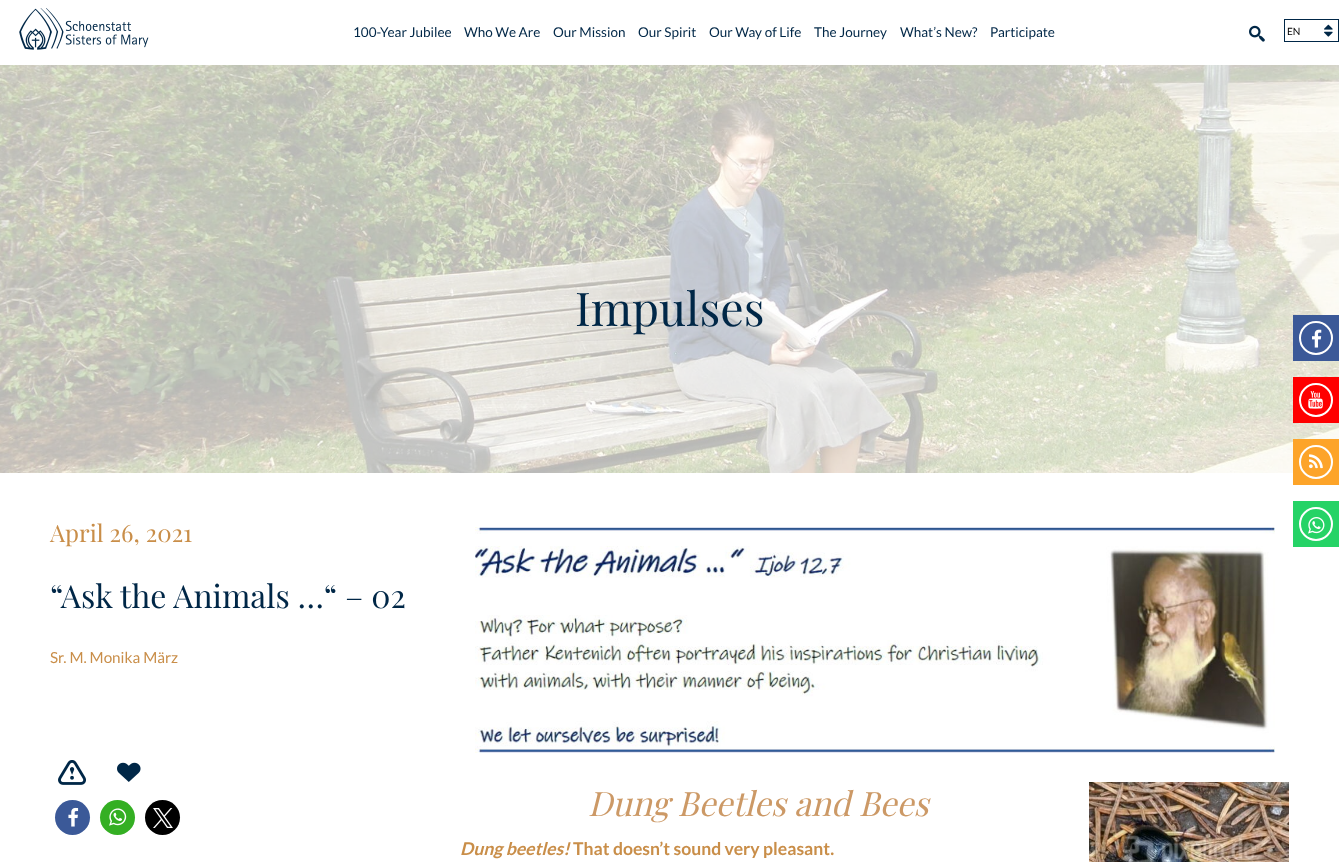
(async () => {
  const canvas = document.querySelector("canvas");
  canvas.width = 1339;
  canvas.height = 862;
  const ctx = canvas.getContext("2d");
  ctx.miterLimit = 4;
  ctx.fontKerning = "normal";
  async function loadImage(src) {
    const img = new Image();
    img.src = src;
    await img.decode();
    return img;
  }

  ctx.fillStyle = "#ffffff";
  ctx.fillRect(0, 0, 1339, 862);
  ctx.drawImage(await loadImage("img/1.png"), 19, 8, 130, 42);
  ctx.drawImage(await loadImage("img/2.png"), 1249, 25, 16, 17);
  ctx.strokeStyle = "#002747";
  ctx.strokeRect(1284.5, 19.5, 54, 22);
  ctx.drawImage(await loadImage("img/3.png"), 1324, 24, 9, 13);
  ctx.drawImage(await loadImage("img/4.png"), 0, 65, 1339, 408);
  ctx.drawImage(await loadImage("img/5.png"), 58, 760, 28, 25);
  ctx.drawImage(await loadImage("img/6.png"), 117, 762, 24, 20);
  ctx.fillStyle = "#3b5998";
  ctx.beginPath();
  ctx.arc(72.5, 817.5, 17.5, 0, Math.PI * 2);
  ctx.fill();
  ctx.drawImage(await loadImage("img/7.png"), 68, 807, 11, 20);
  ctx.fillStyle = "#34af23";
  ctx.beginPath();
  ctx.arc(117.5, 817.5, 17.5, 0, Math.PI * 2);
  ctx.fill();
  ctx.drawImage(await loadImage("img/8.png"), 109, 808, 18, 18);
  ctx.fillStyle = "#000000";
  ctx.beginPath();
  ctx.arc(162.5, 817.5, 17.5, 0, Math.PI * 2);
  ctx.fill();
  ctx.drawImage(await loadImage("img/9.png"), 153, 808, 20, 20);
  ctx.drawImage(await loadImage("img/10.png"), 475, 527, 800, 226);
  ctx.drawImage(await loadImage("img/11.png"), 1089, 782, 200, 80);
  ctx.fillStyle = "#3b5998";
  ctx.fillRect(1293, 315, 46, 46);
  ctx.beginPath();
  ctx.arc(1316, 338, 16, 0, Math.PI * 2);
  ctx.strokeStyle = "#ffffff";
  ctx.lineWidth = 2;
  ctx.stroke();
  ctx.drawImage(await loadImage("img/12.png"), 1312, 329, 10, 19);
  ctx.fillStyle = "#ff0000";
  ctx.fillRect(1293, 377, 46, 46);
  ctx.beginPath();
  ctx.arc(1316, 400, 16, 0, Math.PI * 2);
  ctx.stroke();
  ctx.drawImage(await loadImage("img/13.png"), 1308, 391, 15, 18);
  ctx.fillStyle = "#fda429";
  ctx.fillRect(1293, 439, 46, 46);
  ctx.beginPath();
  ctx.arc(1316, 462, 16, 0, Math.PI * 2);
  ctx.stroke();
  ctx.drawImage(await loadImage("img/14.png"), 1309, 454, 14, 15);
  ctx.fillStyle = "#25d366";
  ctx.fillRect(1293, 501, 46, 46);
  ctx.beginPath();
  ctx.arc(1316, 524, 16, 0, Math.PI * 2);
  ctx.stroke();
  ctx.drawImage(await loadImage("img/15.png"), 1308, 517, 17, 17);
  ctx.font = "13.5px Lato";
  ctx.fillStyle = "#002747";
  for (const [text, x, y] of [
    ["100-Year Jubilee", 353, 37],
    ["Who We Are", 464, 37],
    ["Our Mission", 553, 37],
    ["Our Spirit", 638, 37],
    ["Our Way of Life", 709, 37],
    ["The Journey", 814, 37],
    ["What’s New?", 900, 37],
    ["Participate", 990, 37],
  ]) {
    ctx.fillText(text, x, y);
  }
  ctx.font = "10px Lato";
  ctx.fillStyle = "#000000";
  ctx.fillText("EN", 1287, 35);
  ctx.font = "46.5px Playfair Display";
  ctx.fillStyle = "#002747";
  ctx.fillText("Impulses", 575, 326);
  ctx.font = "24px Playfair Display";
  ctx.fillStyle = "#c98e49";
  ctx.fillText("April 26, 2021", 50, 542);
  ctx.font = "32px Playfair Display";
  ctx.fillStyle = "#002747";
  ctx.fillText("“Ask the Animals …“ – 02", 50, 608);
  ctx.font = "15.25px Lato";
  ctx.fillStyle = "#c98e49";
  ctx.fillText("Sr. M. Monika März", 50, 663);
  ctx.font = "italic 33.6px Playfair Display";
  ctx.fillStyle = "#cc9966";
  ctx.fillText("Dung Beetles and Bees", 588, 816);
  ctx.font = "italic bold 17.6px Lato";
  ctx.fillStyle = "#c98e49";
  ctx.fillText("Dung beetles!", 460, 855);
  ctx.font = "bold 17.6px Lato";
  ctx.fillText("That doesn’t sound very pleasant.", 573, 855);
})();
